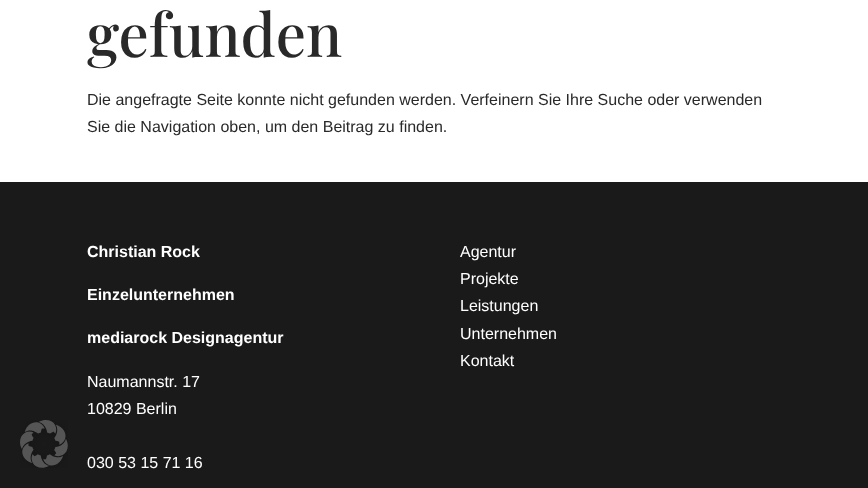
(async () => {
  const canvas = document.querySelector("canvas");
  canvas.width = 868;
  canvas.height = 488;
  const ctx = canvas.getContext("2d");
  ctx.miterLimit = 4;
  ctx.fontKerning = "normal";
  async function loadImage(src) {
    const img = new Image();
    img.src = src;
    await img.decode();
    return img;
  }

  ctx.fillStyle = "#ffffff";
  ctx.fillRect(0, 0, 868, 488);
  ctx.fillStyle = "#1a1a1a";
  ctx.fillRect(0, 182, 868, 306);
  ctx.drawImage(await loadImage("img/1.png"), 20, 420, 48, 48);
  ctx.font = "500 60px Playfair Display";
  ctx.fillStyle = "#292929";
  ctx.fillText("gefunden", 87, 57);
  ctx.font = "16px Liberation Sans";
  ctx.fillText("Die angefragte Seite konnte nicht gefunden werden. Verfeinern Sie Ihre Suche oder verwenden", 87, 105);
  ctx.fillText("Sie die Navigation oben, um den Beitrag zu finden.", 87, 132);
  ctx.font = "bold 16px Liberation Sans";
  ctx.fillStyle = "#ffffff";
  for (const [text, x, y] of [
    ["Christian Rock", 87, 257],
    ["Einzelunternehmen", 87, 300],
    ["mediarock Designagentur", 87, 343],
  ]) {
    ctx.fillText(text, x, y);
  }
  ctx.font = "16px Liberation Sans";
  for (const [text, x, y] of [
    ["Naumannstr. 17", 87, 387],
    ["10829 Berlin", 87, 414],
    ["030 53 15 71 16", 87, 468],
    ["Agentur", 460, 257],
    ["Projekte", 460, 284],
    ["Leistungen", 460, 311],
    ["Unternehmen", 460, 339],
    ["Kontakt", 460, 366],
  ]) {
    ctx.fillText(text, x, y);
  }
})();
